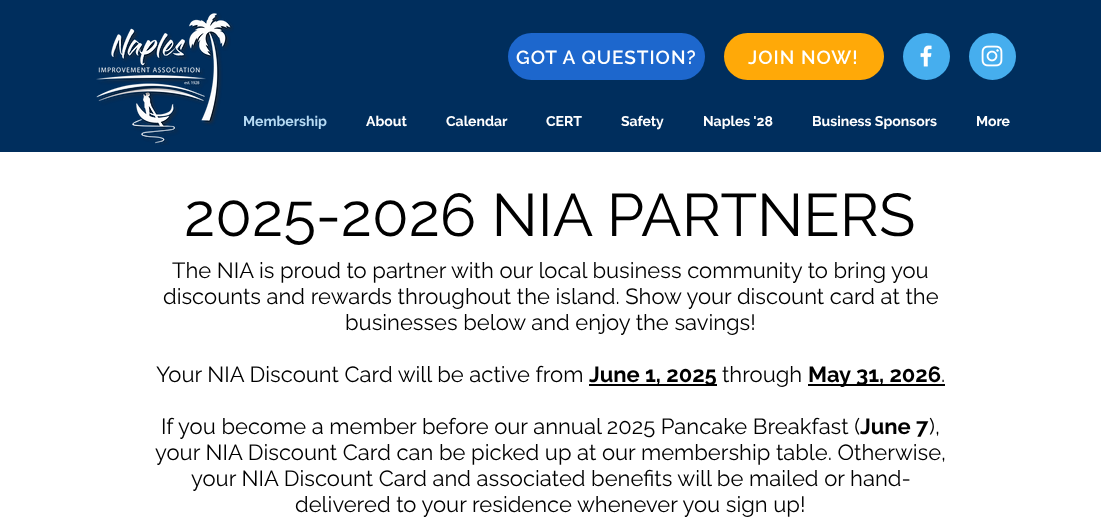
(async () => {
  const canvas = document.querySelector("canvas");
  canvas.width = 1101;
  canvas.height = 532;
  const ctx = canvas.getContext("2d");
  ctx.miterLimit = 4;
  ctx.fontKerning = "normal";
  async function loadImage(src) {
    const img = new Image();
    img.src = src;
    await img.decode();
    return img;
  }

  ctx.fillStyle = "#ffffff";
  ctx.fillRect(0, 0, 1101, 532);
  ctx.fillStyle = "#002e5d";
  ctx.fillRect(0, 0, 1101, 152);
  ctx.drawImage(await loadImage("img/1.png"), 96, 13, 138, 132);
  ctx.fillStyle = "#1d67cd";
  ctx.beginPath();
  ctx.roundRect(508, 33, 197, 47, 23.5);
  ctx.fill();
  ctx.fillStyle = "#ffa908";
  ctx.beginPath();
  ctx.roundRect(724, 33, 160, 47, 23.5);
  ctx.fill();
  ctx.fillStyle = "#46aeee";
  ctx.beginPath();
  ctx.arc(926.5, 56.5, 23.5, 0, Math.PI * 2);
  ctx.fill();
  ctx.drawImage(await loadImage("img/2.png"), 920, 45, 12, 22);
  ctx.beginPath();
  ctx.arc(992.5, 56.5, 23.5, 0, Math.PI * 2);
  ctx.fill();
  ctx.drawImage(await loadImage("img/3.png"), 981, 45, 22, 22);
  ctx.fillStyle = "#000000";
  ctx.fillRect(589, 384, 128, 2);
  ctx.fillRect(808, 384, 137, 2);
  ctx.letterSpacing = "1px";
  ctx.font = "600 19px Raleway";
  ctx.fillStyle = "#ffffff";
  ctx.fillText("GOT A QUESTION?", 516, 64);
  ctx.fillText("JOIN NOW!", 748, 64);
  ctx.letterSpacing = "0px";
  ctx.font = "bold 14px Raleway";
  ctx.fillStyle = "#b5daf3";
  ctx.fillText("Membership", 243, 126);
  ctx.fillStyle = "#ffffff";
  for (const [text, x, y] of [
    ["About", 366, 126],
    ["Calendar", 446, 126],
    ["CERT", 546, 126],
    ["Safety", 621, 126],
    ["Naples '28", 703, 126],
    ["Business Sponsors", 812, 126],
    ["More", 976, 126],
  ]) {
    ctx.fillText(text, x, y);
  }
  ctx.font = "60px Raleway";
  ctx.fillStyle = "#000000";
  ctx.fillText("2025-2026 NIA PARTNERS", 184, 236);
  ctx.font = "22px Raleway";
  for (const [text, x, y] of [
    ["The NIA is proud to partner with our local business community to bring you", 172, 278],
    ["discounts and rewards throughout the island. Show your discount card at the", 163, 304],
    ["businesses below and enjoy the savings!", 345, 330],
    ["Your NIA Discount Card will be active from", 156, 382],
  ]) {
    ctx.fillText(text, x, y);
  }
  ctx.font = "bold 22px 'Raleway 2'";
  ctx.fillText("June 1, 2025", 589, 382);
  ctx.font = "22px Raleway";
  ctx.fillText("through", 722, 382);
  ctx.font = "bold 22px 'Raleway 2'";
  ctx.fillText("May 31, 2026", 808, 382);
  ctx.font = "22px Raleway";
  ctx.fillText(".", 941, 382);
  ctx.fillText("If you become a member before our annual 2025 Pancake Breakfast (", 161, 434);
  ctx.font = "bold 22px 'Raleway 2'";
  ctx.fillText("June 7", 860, 434);
  ctx.font = "22px Raleway";
  for (const [text, x, y] of [
    ["),", 929, 434],
    ["your NIA Discount Card can be picked up at our membership table. Otherwise,", 155, 460],
    ["your NIA Discount Card and associated benefits will be mailed or hand-", 191, 486],
    ["delivered to your residence whenever you sign up!", 295, 512],
  ]) {
    ctx.fillText(text, x, y);
  }
})();
